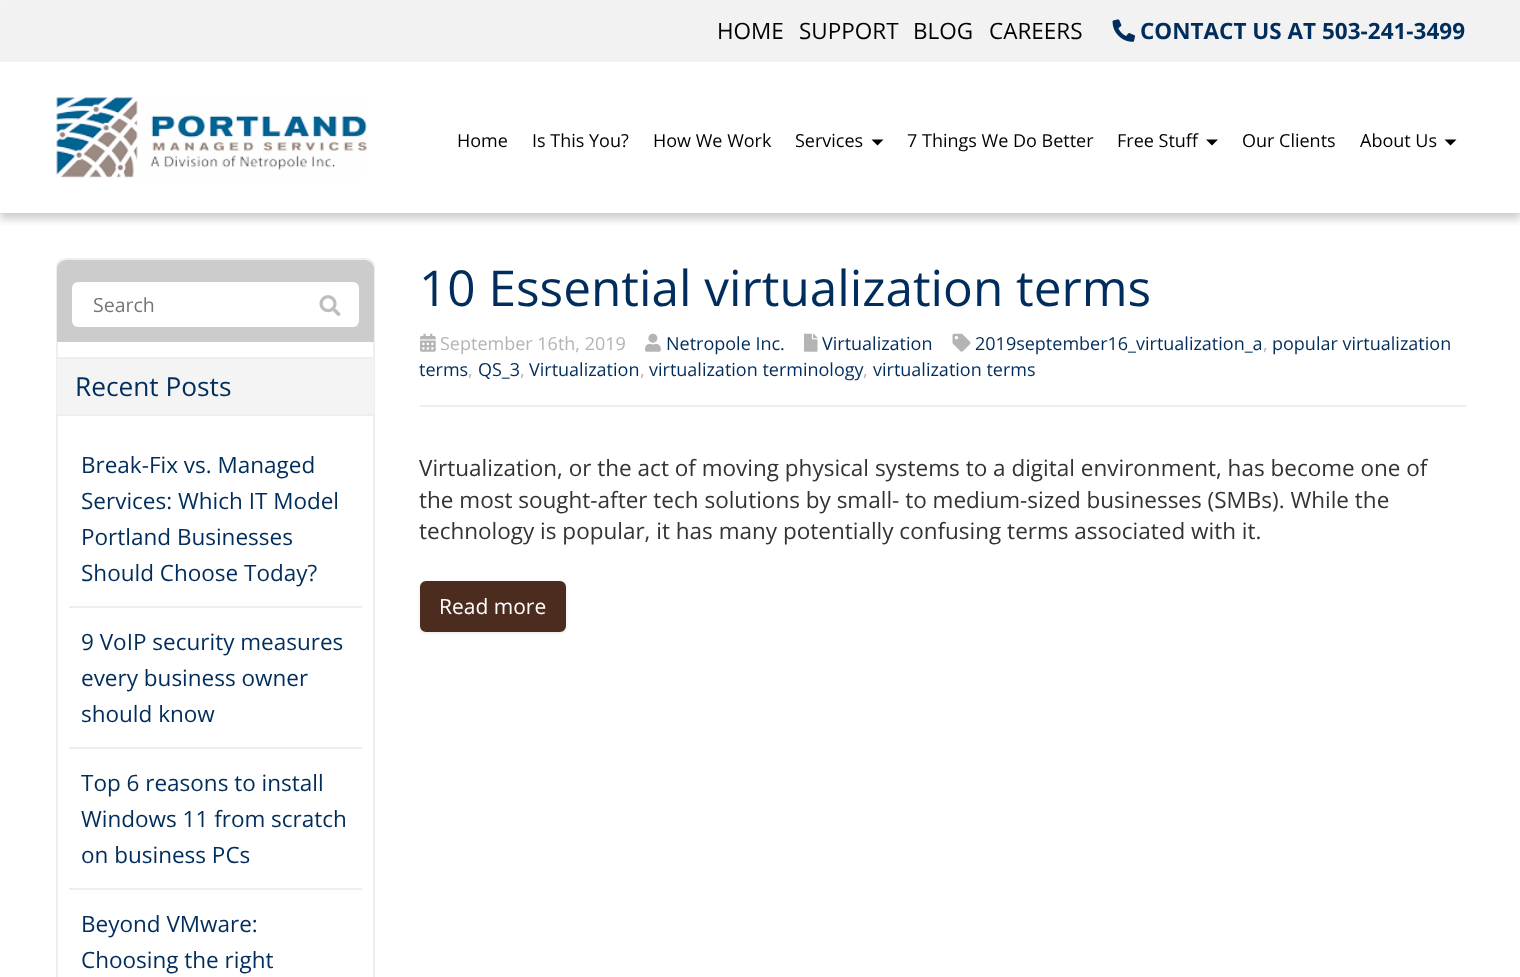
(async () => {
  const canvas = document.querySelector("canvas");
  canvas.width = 1520;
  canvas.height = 977;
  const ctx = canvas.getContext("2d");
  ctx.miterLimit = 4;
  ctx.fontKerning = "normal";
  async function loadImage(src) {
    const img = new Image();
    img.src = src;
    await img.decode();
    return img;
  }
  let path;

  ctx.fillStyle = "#ffffff";
  ctx.fillRect(0, 0, 1520, 977);
  ctx.fillStyle = "#f2f2f2";
  ctx.fillRect(0, 0, 1520, 62);
  ctx.drawImage(await loadImage("img/1.png"), 1, 1, 2, 2);
  ctx.drawImage(await loadImage("img/2.png"), 1112, 19, 23, 23);
  ctx.save();
  ctx.beginPath();
  ctx.rect(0, 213, 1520, 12);
  ctx.clip();
  ctx.fillStyle = "rgba(0, 0, 0, 0.2)";
  ctx.filter = "blur(4.5px)";
  ctx.beginPath();
  ctx.rect(0, 68, 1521, 151);
  ctx.fill();
  ctx.filter = "none";
  ctx.restore();
  ctx.drawImage(await loadImage("img/3.png"), 56, 97, 311, 81);
  ctx.fillStyle = "#000000";
  path = new Path2D("M871.5 139.5H883.5L877.5 145.5Z");
  ctx.fill(path);
  path = new Path2D("M1206 139.5H1218L1212 145.5Z");
  ctx.fill(path);
  path = new Path2D("M1444.5 139.5H1456.5L1450.5 145.5Z");
  ctx.fill(path);
  ctx.beginPath();
  ctx.roundRect(57, 259, 317, 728, 8);
  ctx.strokeStyle = "#eeeeee";
  ctx.lineWidth = 2;
  ctx.stroke();
  ctx.fillStyle = "#cccccc";
  ctx.beginPath();
  ctx.roundRect(57, 260, 317, 82, [9, 9, 0, 0]);
  ctx.fill();
  ctx.fillStyle = "#ffffff";
  ctx.beginPath();
  ctx.roundRect(72, 282, 287, 45, 6);
  ctx.fill();
  ctx.drawImage(await loadImage("img/4.png"), 319, 295, 22, 22);
  for (const [x, y, w, h, color] of [
    [57, 359, 317, 55, "#f4f4f4"],
    [57, 357, 317, 2, "#eeeeee"],
    [57, 414, 317, 2, "#eeeeee"],
    [69, 606, 293, 2, "#eeeeee"],
    [69, 747, 293, 2, "#eeeeee"],
    [69, 888, 293, 2, "#eeeeee"],
    [420, 405, 1046, 2, "#eeeeee"],
  ]) {
    ctx.fillStyle = color;
    ctx.fillRect(x, y, w, h);
  }
  ctx.drawImage(await loadImage("img/5.png"), 952, 333, 19, 19);
  ctx.drawImage(await loadImage("img/6.png"), 420, 333, 16, 19);
  ctx.drawImage(await loadImage("img/7.png"), 645, 333, 16, 19);
  ctx.drawImage(await loadImage("img/8.png"), 804, 333, 14, 19);
  ctx.fillStyle = "rgba(0, 0, 0, 0.1)";
  ctx.filter = "blur(1.5px)";
  ctx.beginPath();
  ctx.roundRect(420, 582, 146, 51, 6);
  ctx.fill();
  ctx.filter = "none";
  ctx.fillStyle = "#4c2c1f";
  ctx.beginPath();
  ctx.roundRect(421, 582, 144, 49, 5);
  ctx.fill();
  ctx.strokeStyle = "#4c2c1f";
  ctx.stroke();
  ctx.font = "22.5px Open Sans";
  ctx.fillStyle = "#000000";
  for (const [text, x, y] of [
    ["HOME", 717, 39],
    ["SUPPORT", 799, 39],
    ["BLOG", 913, 39],
    ["CAREERS", 989, 39],
  ]) {
    ctx.fillText(text, x, y);
  }
  ctx.font = "bold 22.5px Open Sans";
  ctx.fillStyle = "#012d5c";
  ctx.fillText("CONTACT US AT 503-241-3499", 1140, 39);
  ctx.font = "18px Open Sans";
  ctx.fillStyle = "#000000";
  for (const [text, x, y] of [
    ["Home", 457, 147],
    ["Is This You?", 532, 147],
    ["How We Work", 653, 147],
    ["Services", 795, 147],
    ["7 Things We Do Better", 907, 147],
    ["Free Stuff", 1117, 147],
    ["Our Clients", 1242, 147],
    ["About Us", 1360, 147],
  ]) {
    ctx.fillText(text, x, y);
  }
  ctx.font = "19.5px Open Sans";
  ctx.fillStyle = "#757575";
  ctx.fillText("Search", 93, 312);
  ctx.font = "26.25px Open Sans";
  ctx.fillStyle = "#012d5c";
  ctx.fillText("Recent Posts", 75, 396);
  ctx.font = "22.5px Open Sans";
  for (const [text, x, y] of [
    ["Break-Fix vs. Managed", 81, 473],
    ["Services: Which IT Model", 81, 509],
    ["Portland Businesses", 81, 545],
    ["Should Choose Today?", 81, 581],
    ["9 VoIP security measures", 81, 650],
    ["every business owner", 81, 686],
    ["should know", 81, 722],
    ["Top 6 reasons to install", 81, 791],
    ["Windows 11 from scratch", 81, 827],
    ["on business PCs", 81, 863],
    ["Beyond VMware:", 81, 932],
    ["Choosing the right", 81, 968],
  ]) {
    ctx.fillText(text, x, y);
  }
  ctx.font = "49.5px Open Sans";
  ctx.fillText("10 Essential virtualization terms", 419, 306);
  ctx.font = "18px Open Sans";
  ctx.fillText("2019september16_virtualization_a", 975, 350);
  ctx.fillStyle = "#b4b4b4";
  ctx.fillText(",", 1263, 350);
  ctx.fillStyle = "#012d5c";
  ctx.fillText("popular virtualization", 1272, 350);
  ctx.fillText("terms", 419, 376);
  ctx.fillStyle = "#b4b4b4";
  ctx.fillText(",", 468, 376);
  ctx.fillStyle = "#012d5c";
  ctx.fillText("QS_3", 478, 376);
  ctx.fillStyle = "#b4b4b4";
  ctx.fillText(",", 520, 376);
  ctx.fillStyle = "#012d5c";
  ctx.fillText("Virtualization", 529, 376);
  ctx.fillStyle = "#b4b4b4";
  ctx.fillText(",", 640, 376);
  ctx.fillStyle = "#012d5c";
  ctx.fillText("virtualization terminology", 649, 376);
  ctx.fillStyle = "#b4b4b4";
  ctx.fillText(",", 863, 376);
  ctx.fillStyle = "#012d5c";
  ctx.fillText("virtualization terms", 873, 376);
  ctx.fillStyle = "#b4b4b4";
  ctx.fillText("September 16th, 2019", 440, 350);
  ctx.fillStyle = "#012d5c";
  ctx.fillText("Netropole Inc.", 666, 350);
  ctx.fillText("Virtualization", 822, 350);
  ctx.font = "22.5px Open Sans";
  ctx.fillStyle = "#333333";
  for (const [text, x, y] of [
    ["Virtualization, or the act of moving physical systems to a digital environment, has become one of", 419, 476],
    ["the most sought-after tech solutions by small- to medium-sized businesses (SMBs). While the", 419, 508],
    ["technology is popular, it has many potentially confusing terms associated with it.", 419, 539],
  ]) {
    ctx.fillText(text, x, y);
  }
  ctx.font = "21px Open Sans";
  ctx.fillStyle = "#ffffff";
  ctx.fillText("Read more", 439, 614);
})();
